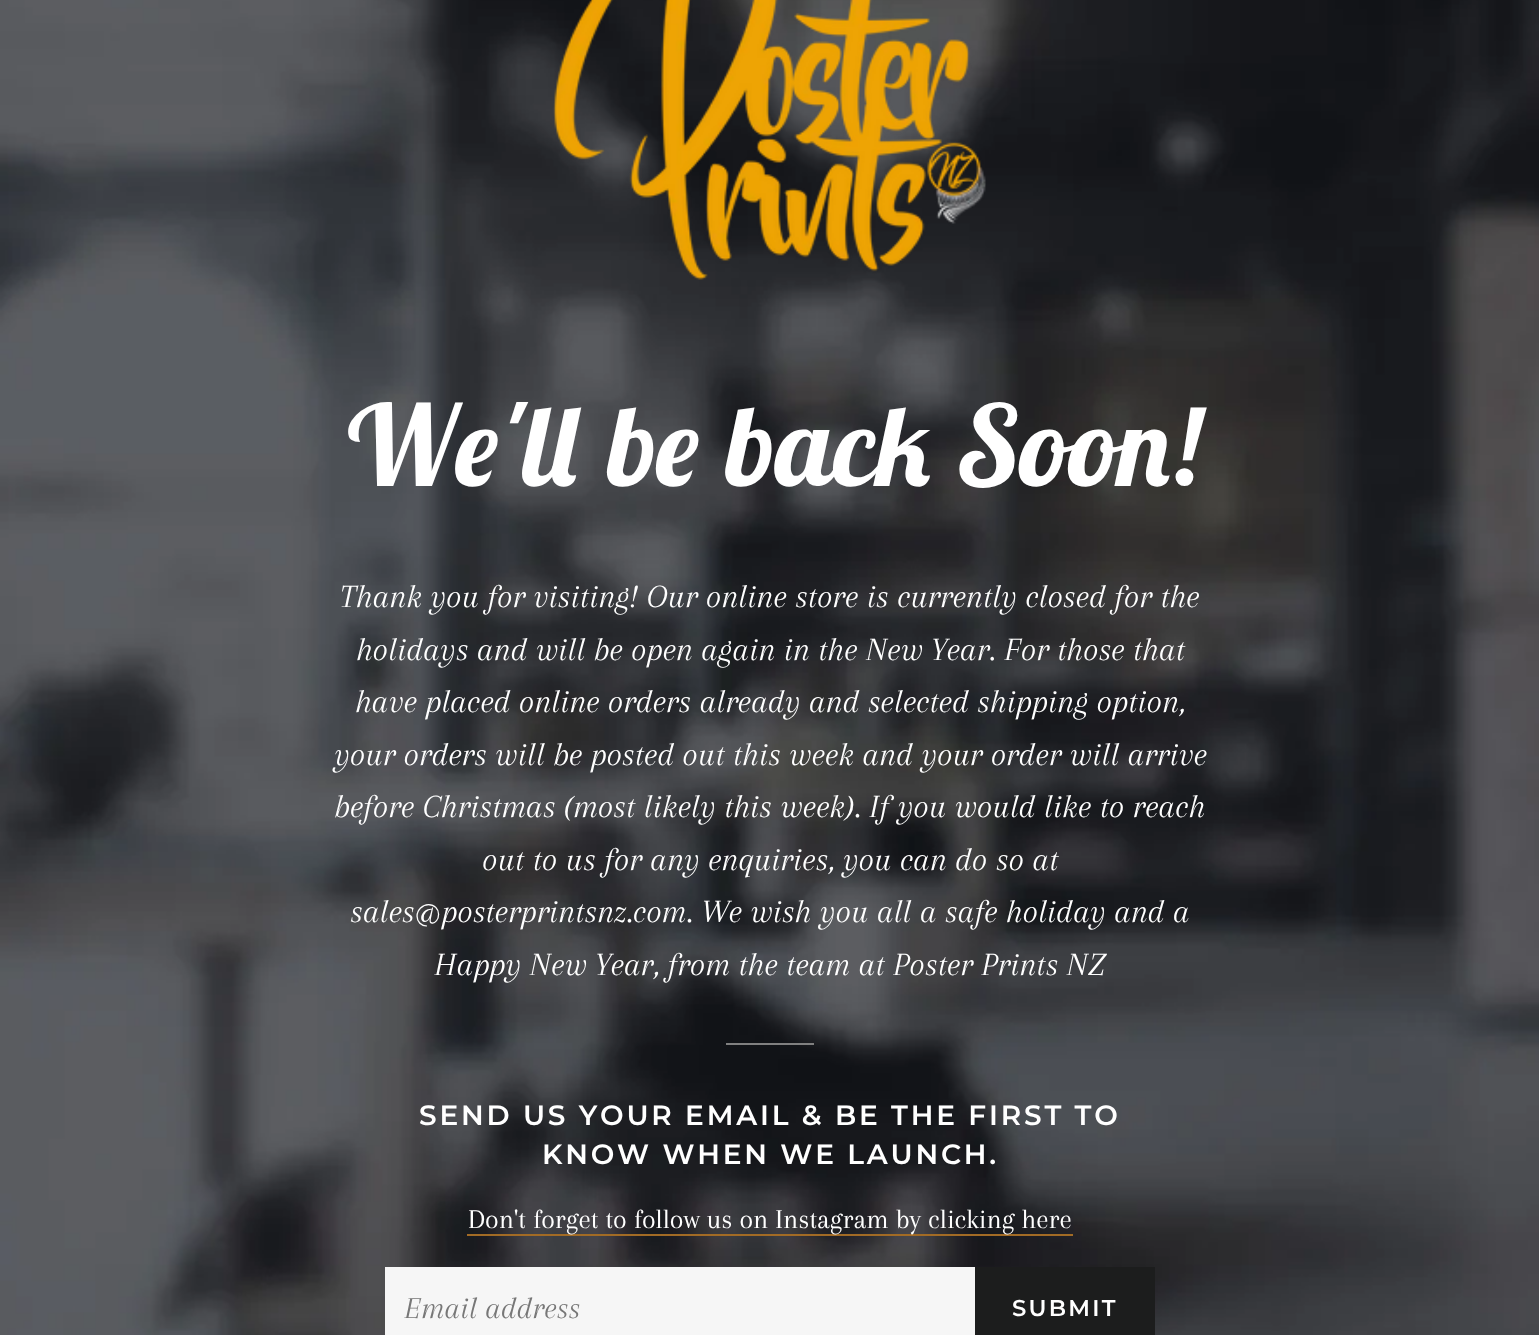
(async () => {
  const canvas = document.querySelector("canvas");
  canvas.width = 1539;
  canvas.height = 1335;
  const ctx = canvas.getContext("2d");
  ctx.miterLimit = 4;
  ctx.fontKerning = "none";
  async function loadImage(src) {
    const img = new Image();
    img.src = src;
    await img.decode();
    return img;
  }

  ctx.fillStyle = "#ffffff";
  ctx.fillRect(0, 0, 1539, 1335);
  ctx.drawImage(await loadImage("img/1.png"), 0, 0, 1539, 1335);
  ctx.drawImage(await loadImage("img/2.png"), 553, 0, 433, 280);
  for (const [x, y, w, h, color] of [
    [726, 1043, 88, 2, "#808080"],
    [467, 1234, 606, 2, "#a26b25"],
    [385, 1267, 590, 68, "#f6f6f6"],
    [975, 1267, 180, 68, "#1c1d1d"],
  ]) {
    ctx.fillStyle = color;
    ctx.fillRect(x, y, w, h);
  }
  ctx.font = "italic bold 112px Lobster Two";
  ctx.fillStyle = "#ffffff";
  ctx.fillText("We'll be back Soon!", 342, 486);
  ctx.font = "italic 33.6px Arapey";
  for (const [text, x, y] of [
    ["Thank you for visiting! Our online store is currently closed for the", 340, 607],
    ["holidays and will be open again in the New Year. For those that", 356, 660],
    ["have placed online orders already and selected shipping option,", 355, 712],
    ["your orders will be posted out this week and your order will arrive", 334, 765],
    ["before Christmas (most likely this week). If you would like to reach", 334, 817],
    ["out to us for any enquiries, you can do so at", 482, 870],
    ["sales@posterprintsnz.com. We wish you all a safe holiday and a", 350, 922],
    ["Happy New Year, from the team at Poster Prints NZ", 434, 975],
  ]) {
    ctx.fillText(text, x, y);
  }
  ctx.letterSpacing = "2.8px";
  ctx.font = "600 28px Montserrat";
  ctx.fillText("SEND US YOUR EMAIL & BE THE FIRST TO", 419, 1125);
  ctx.fillText("KNOW WHEN WE LAUNCH.", 542, 1164);
  ctx.letterSpacing = "0px";
  ctx.font = "28px Arapey";
  ctx.fillText("Don't forget to follow us on Instagram by clicking here", 468, 1228);
  ctx.font = "italic 31.5px Arapey";
  ctx.fillStyle = "#777777";
  ctx.fillText("Email address", 404, 1318);
  ctx.letterSpacing = "2.25px";
  ctx.font = "600 22.75px Montserrat";
  ctx.fillStyle = "#ffffff";
  ctx.fillText("SUBMIT", 1012, 1316);
})();
